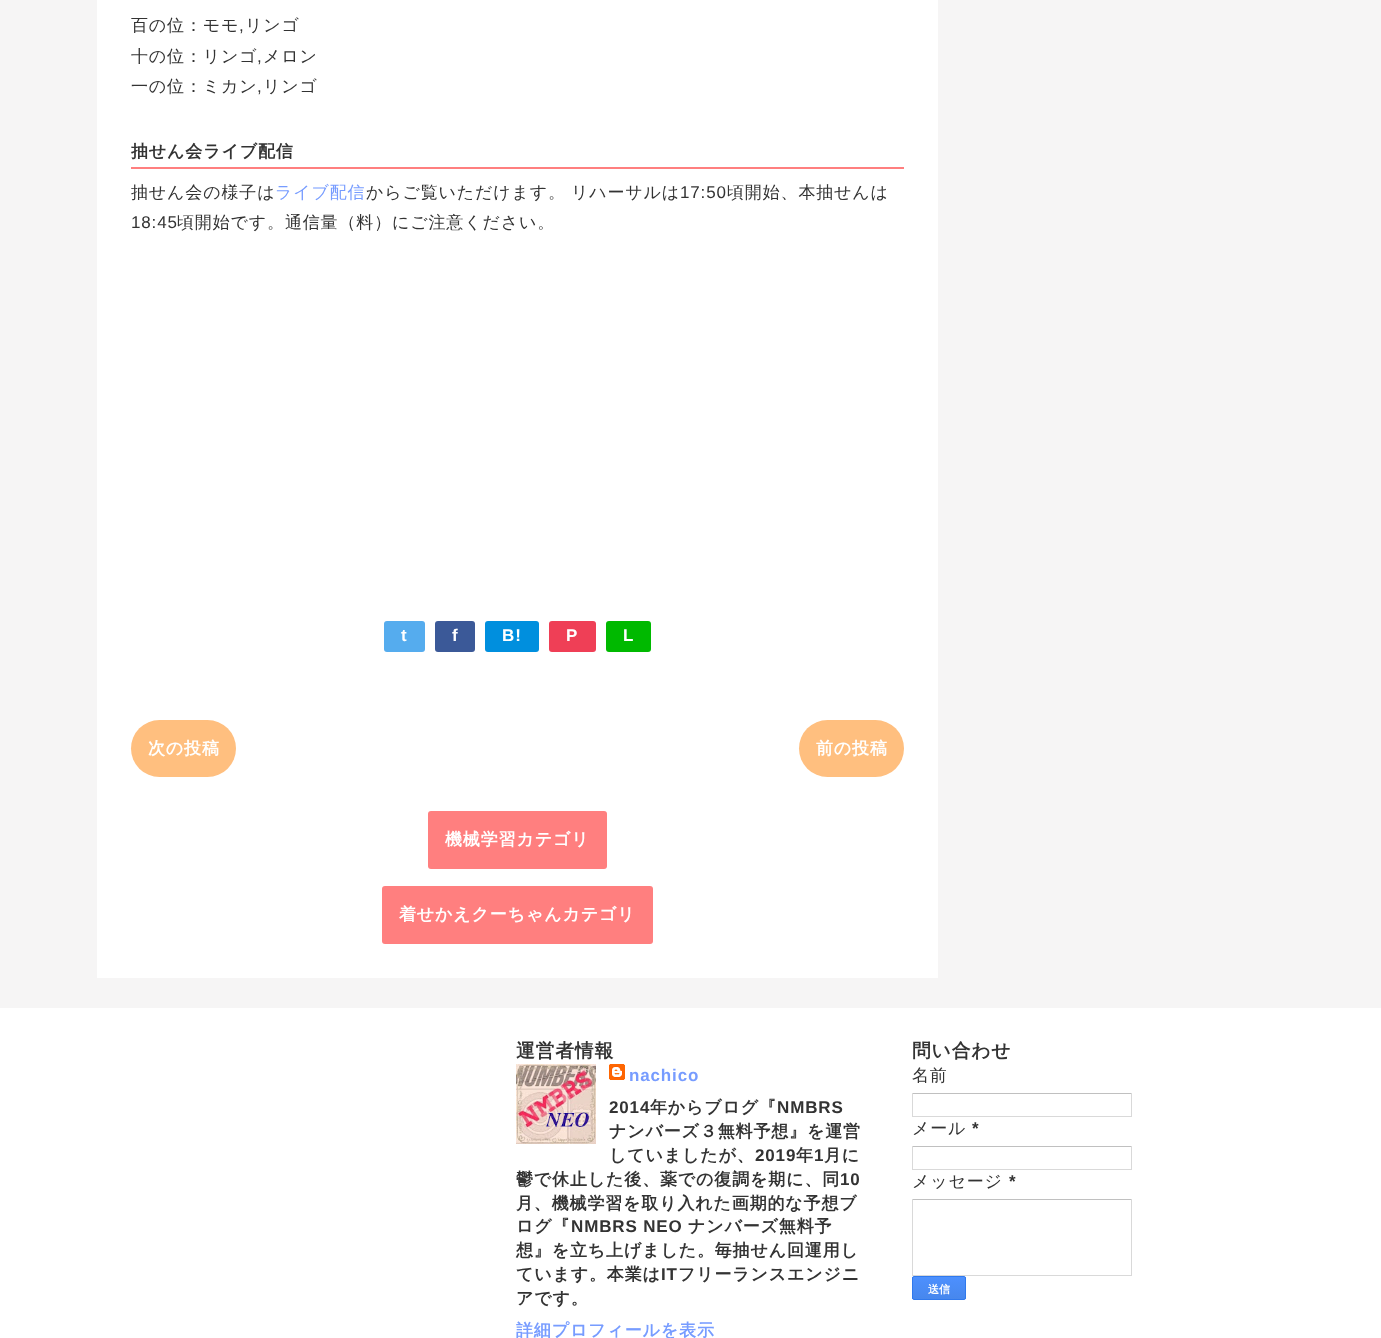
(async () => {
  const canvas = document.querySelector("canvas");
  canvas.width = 1381;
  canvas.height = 1338;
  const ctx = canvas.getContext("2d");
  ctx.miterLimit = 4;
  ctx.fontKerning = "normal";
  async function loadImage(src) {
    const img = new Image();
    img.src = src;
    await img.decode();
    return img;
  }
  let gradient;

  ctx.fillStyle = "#f6f5f5";
  ctx.fillRect(0, 0, 1381, 1338);
  ctx.fillStyle = "#ffffff";
  ctx.fillRect(97, 0, 841, 978);
  ctx.fillStyle = "#ff7f7f";
  ctx.fillRect(131, 167, 773, 2);
  ctx.fillStyle = "#55acee";
  ctx.beginPath();
  ctx.roundRect(384, 621, 41, 31, 3);
  ctx.fill();
  ctx.fillStyle = "#3b5998";
  ctx.beginPath();
  ctx.roundRect(435, 621, 40, 31, 3);
  ctx.fill();
  ctx.fillStyle = "#008fde";
  ctx.beginPath();
  ctx.roundRect(485, 621, 54, 31, 3);
  ctx.fill();
  ctx.fillStyle = "#ef3f56";
  ctx.beginPath();
  ctx.roundRect(549, 621, 47, 31, 3);
  ctx.fill();
  ctx.fillStyle = "#00b900";
  ctx.beginPath();
  ctx.roundRect(606, 621, 45, 31, 3);
  ctx.fill();
  ctx.fillStyle = "#ffbf7f";
  ctx.beginPath();
  ctx.roundRect(131, 720, 105, 57, 28.5);
  ctx.fill();
  ctx.beginPath();
  ctx.roundRect(799, 720, 105, 57, 28.5);
  ctx.fill();
  ctx.fillStyle = "#ff7f7f";
  ctx.beginPath();
  ctx.roundRect(428, 811, 179, 58, 3);
  ctx.fill();
  ctx.beginPath();
  ctx.roundRect(382, 886, 271, 58, 3);
  ctx.fill();
  ctx.fillStyle = "#ffffff";
  ctx.fillRect(0, 1008, 1381, 330);
  ctx.drawImage(await loadImage("img/1.png"), 516, 1064, 80, 80);
  ctx.drawImage(await loadImage("img/2.png"), 609, 1064, 16, 16);
  for (const [x, y, w, h, color] of [
    [912, 1093, 220, 1, "#c0c0c0"],
    [1131, 1093, 1, 24, "#d9d9d9"],
    [912, 1116, 220, 1, "#d9d9d9"],
    [912, 1093, 1, 24, "#d9d9d9"],
    [912, 1146, 220, 1, "#c0c0c0"],
    [1131, 1146, 1, 24, "#d9d9d9"],
    [912, 1169, 220, 1, "#d9d9d9"],
    [912, 1146, 1, 24, "#d9d9d9"],
    [912, 1199, 220, 1, "#c0c0c0"],
    [1131, 1199, 1, 77, "#d9d9d9"],
    [912, 1275, 220, 1, "#d9d9d9"],
    [912, 1199, 1, 77, "#d9d9d9"],
  ]) {
    ctx.fillStyle = color;
    ctx.fillRect(x, y, w, h);
  }
  ctx.save();
  ctx.beginPath();
  ctx.roundRect(912, 1276, 54, 24, 2);
  ctx.clip();
  gradient = ctx.createLinearGradient(939, 1277, 939, 1299);
  gradient.addColorStop(0, "#4d90fe");
  gradient.addColorStop(1, "#4787ed");
  ctx.fillStyle = gradient;
  ctx.fillRect(912, 1277, 54, 22);
  ctx.restore();
  ctx.beginPath();
  ctx.roundRect(912.5, 1276.5, 53, 23, 1.5);
  ctx.strokeStyle = "#3079ed";
  ctx.stroke();
  ctx.letterSpacing = "0.85px";
  ctx.font = "500 17px WenQuanYi Zen Hei";
  ctx.fillStyle = "#333333";
  ctx.fillText("百の位：モモ", 131, 31);
  ctx.font = "17px Liberation Sans";
  ctx.fillText(",", 239, 31);
  ctx.font = "500 17px WenQuanYi Zen Hei";
  ctx.fillText("リンゴ", 245, 31);
  ctx.fillText("十の位：リンゴ", 131, 62);
  ctx.font = "17px Liberation Sans";
  ctx.fillText(",", 257, 62);
  ctx.font = "500 17px WenQuanYi Zen Hei";
  ctx.fillText("メロン", 263, 62);
  ctx.fillText("一の位：ミカン", 131, 92);
  ctx.font = "17px Liberation Sans";
  ctx.fillText(",", 257, 92);
  ctx.font = "500 17px WenQuanYi Zen Hei";
  ctx.fillText("リンゴ", 263, 92);
  ctx.font = "bold 17px WenQuanYi Zen Hei";
  ctx.fillText("抽せん会ライブ配信", 131, 157);
  ctx.font = "500 17px WenQuanYi Zen Hei";
  ctx.fillText("抽せん会の様子は", 131, 198);
  ctx.fillStyle = "#779cff";
  ctx.fillText("ライブ配信", 275, 198);
  ctx.fillStyle = "#333333";
  ctx.fillText("からご覧いただけます。", 366, 198);
  ctx.fillText("リハーサルは", 571, 198);
  ctx.font = "17px Liberation Sans";
  ctx.fillText("17:50", 680, 198);
  ctx.font = "500 17px WenQuanYi Zen Hei";
  ctx.fillText("頃開始、本抽せんは", 727, 198);
  ctx.font = "17px Liberation Sans";
  ctx.fillText("18:45", 131, 228);
  ctx.font = "500 17px WenQuanYi Zen Hei";
  ctx.fillText("頃開始です。通信量（料）にご注意ください。", 177, 228);
  ctx.font = "bold 17px Liberation Sans";
  ctx.fillStyle = "#ffffff";
  for (const [text, x, y] of [
    ["t", 401, 641],
    ["f", 452, 641],
    ["B!", 502, 641],
    ["P", 566, 641],
    ["L", 623, 641],
  ]) {
    ctx.fillText(text, x, y);
  }
  ctx.font = "bold 17px WenQuanYi Zen Hei";
  for (const [text, x, y] of [
    ["次の投稿", 148, 754],
    ["前の投稿", 816, 754],
    ["機械学習カテゴリ", 445, 845],
    ["着せかえクーちゃんカテゴリ", 399, 920],
  ]) {
    ctx.fillText(text, x, y);
  }
  ctx.font = "bold 18.75px WenQuanYi Zen Hei";
  ctx.fillStyle = "#333333";
  ctx.fillText("運営者情報", 516, 1057);
  ctx.font = "bold 17px Liberation Sans";
  ctx.fillStyle = "#779cff";
  ctx.fillText("nachico", 629, 1081);
  ctx.fillStyle = "#333333";
  ctx.fillText("2014", 609, 1113);
  ctx.font = "bold 17px WenQuanYi Zen Hei";
  ctx.fillText("年からブログ『", 650, 1113);
  ctx.font = "bold 17px Liberation Sans";
  ctx.fillText("NMBRS", 777, 1113);
  ctx.font = "bold 17px WenQuanYi Zen Hei";
  ctx.fillText("ナンバーズ３無料予想』を運営", 609, 1137);
  ctx.fillText("していましたが、", 609, 1161);
  ctx.font = "bold 17px Liberation Sans";
  ctx.fillText("2019", 755, 1161);
  ctx.font = "bold 17px WenQuanYi Zen Hei";
  ctx.fillText("年", 796, 1161);
  ctx.font = "bold 17px Liberation Sans";
  ctx.fillText("1", 814, 1161);
  ctx.font = "bold 17px WenQuanYi Zen Hei";
  ctx.fillText("月に", 824, 1161);
  ctx.fillText("鬱で休止した後、薬での復調を期に、同", 516, 1185);
  ctx.font = "bold 17px Liberation Sans";
  ctx.fillText("10", 840, 1185);
  ctx.font = "bold 17px WenQuanYi Zen Hei";
  ctx.fillText("月、機械学習を取り入れた画期的な予想ブ", 516, 1209);
  ctx.fillText("ログ『", 516, 1232);
  ctx.font = "bold 17px Liberation Sans";
  ctx.fillText("NMBRS NEO", 571, 1232);
  ctx.font = "bold 17px WenQuanYi Zen Hei";
  for (const [text, x, y] of [
    ["ナンバーズ無料予", 688, 1232],
    ["想』を立ち上げました。毎抽せん回運用し", 516, 1256],
    ["ています。本業は", 516, 1280],
  ]) {
    ctx.fillText(text, x, y);
  }
  ctx.font = "bold 17px Liberation Sans";
  ctx.fillText("IT", 661, 1280);
  ctx.font = "bold 17px WenQuanYi Zen Hei";
  ctx.fillText("フリーランスエンジニ", 678, 1280);
  ctx.fillText("アです。", 516, 1304);
  ctx.fillStyle = "#779cff";
  ctx.fillText("詳細プロフィールを表示", 516, 1336);
  ctx.font = "bold 18.75px WenQuanYi Zen Hei";
  ctx.fillStyle = "#333333";
  ctx.fillText("問い合わせ", 912, 1057);
  ctx.font = "500 17px WenQuanYi Zen Hei";
  ctx.fillText("名前", 912, 1081);
  ctx.fillText("メール", 912, 1134);
  ctx.font = "bold 17px Liberation Sans";
  ctx.fillText("*", 972, 1134);
  ctx.font = "500 17px WenQuanYi Zen Hei";
  ctx.fillText("メッセージ", 912, 1187);
  ctx.font = "bold 17px Liberation Sans";
  ctx.fillText("*", 1009, 1187);
  ctx.letterSpacing = "0px";
  ctx.font = "bold 11px WenQuanYi Zen Hei";
  ctx.fillStyle = "#ffffff";
  ctx.fillText("送信", 928, 1293);
})();
